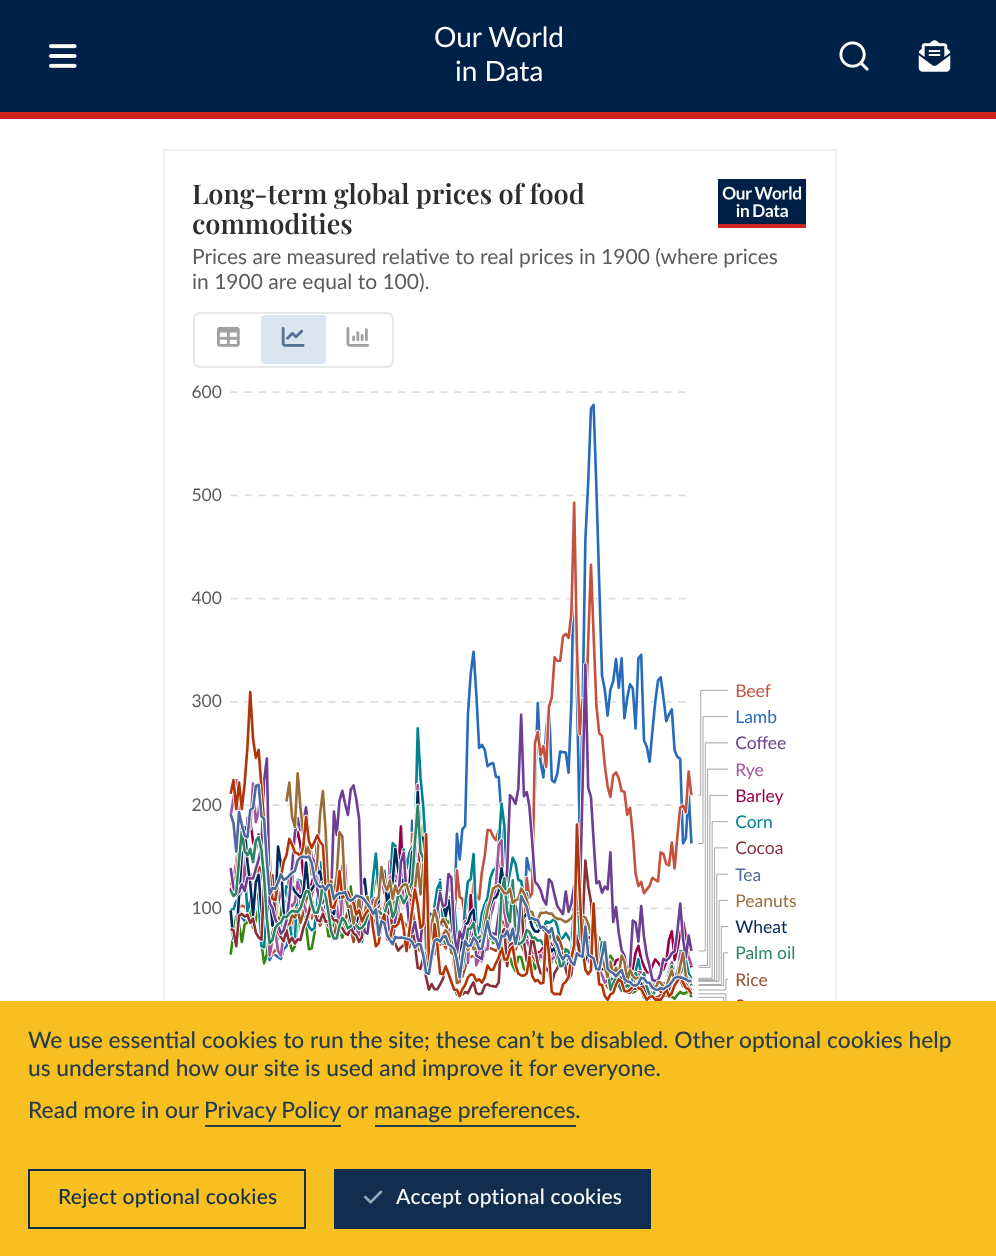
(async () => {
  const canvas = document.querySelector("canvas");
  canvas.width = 996;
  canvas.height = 1256;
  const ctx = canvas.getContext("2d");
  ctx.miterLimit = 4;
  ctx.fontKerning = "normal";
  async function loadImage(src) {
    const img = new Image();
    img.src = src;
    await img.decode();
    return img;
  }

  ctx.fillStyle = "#ffffff";
  ctx.fillRect(0, 0, 996, 1256);
  ctx.fillStyle = "#002147";
  ctx.fillRect(0, 0, 996, 112);
  ctx.fillStyle = "#ce261e";
  ctx.fillRect(0, 112, 996, 7);
  ctx.drawImage(await loadImage("img/1.png"), 49, 44, 28, 24);
  ctx.drawImage(await loadImage("img/2.png"), 839, 41, 30, 30);
  ctx.drawImage(await loadImage("img/3.png"), 918, 40, 33, 32);
  ctx.strokeStyle = "#f2f2f2";
  ctx.lineWidth = 2;
  ctx.strokeRect(164, 150, 672, 1078);
  ctx.drawImage(await loadImage("img/4.png"), 718, 179, 88, 49);
  ctx.beginPath();
  ctx.roundRect(194, 313, 199, 54, 6);
  ctx.strokeStyle = "#e7e7e7";
  ctx.stroke();
  ctx.drawImage(await loadImage("img/5.png"), 217, 326, 23, 21);
  ctx.fillStyle = "#dbe5f0";
  ctx.beginPath();
  ctx.roundRect(261, 315, 65, 49, 4);
  ctx.fill();
  ctx.drawImage(await loadImage("img/6.png"), 281, 327, 24, 20);
  ctx.drawImage(await loadImage("img/7.png"), 346, 327, 24, 20);
  ctx.drawImage(await loadImage("img/8.png"), 191, 385, 605, 616);
  for (const [x, y, w, h, color] of [
    [0, 1001, 996, 255, "#f7c020"],
    [205, 1125, 136, 2, "#283d4a"],
    [375, 1125, 201, 2, "#283d4a"],
  ]) {
    ctx.fillStyle = color;
    ctx.fillRect(x, y, w, h);
  }
  ctx.strokeStyle = "#112e4f";
  ctx.strokeRect(29, 1170, 276, 58);
  ctx.fillStyle = "#112e4f";
  ctx.fillRect(334, 1169, 317, 60);
  ctx.drawImage(await loadImage("img/9.png"), 364, 1190, 19, 14);
  ctx.font = "28px Lato";
  ctx.fillStyle = "#ffffff";
  ctx.fillText("Our World", 434, 47);
  ctx.fillText("in Data", 455, 81);
  ctx.font = "600 27.1px Playfair Display";
  ctx.fillStyle = "#2d2e2d";
  ctx.fillText("Long-term global prices of food", 192, 204);
  ctx.fillText("commodities", 192, 234);
  ctx.font = "21px Lato";
  ctx.fillStyle = "#5b5b5b";
  ctx.fillText("Prices are measured relative to real prices in 1900 (where prices", 192, 264);
  ctx.fillText("in 1900 are equal to 100).", 192, 289);
  ctx.font = "500 22.75px Lato";
  ctx.fillStyle = "#283d4a";
  for (const [text, x, y] of [
    ["We use essential cookies to run the site; these can’t be disabled. Other optional cookies help", 28, 1048],
    ["us understand how our site is used and improve it for everyone.", 28, 1076],
    ["Read more in our", 28, 1118],
  ]) {
    ctx.fillText(text, x, y);
  }
  ctx.wordSpacing = "-1px";
  ctx.fillText("Privacy Policy", 204, 1118);
  ctx.wordSpacing = "0px";
  ctx.fillText("or", 347, 1118);
  ctx.fillText("manage preferences.", 374, 1118);
  ctx.letterSpacing = "0.25px";
  ctx.font = "500 21px Lato";
  ctx.fillStyle = "#112e4f";
  ctx.fillText("Reject optional cookies", 58, 1204);
  ctx.fillStyle = "#ffffff";
  ctx.fillText("Accept optional cookies", 396, 1204);
})();
